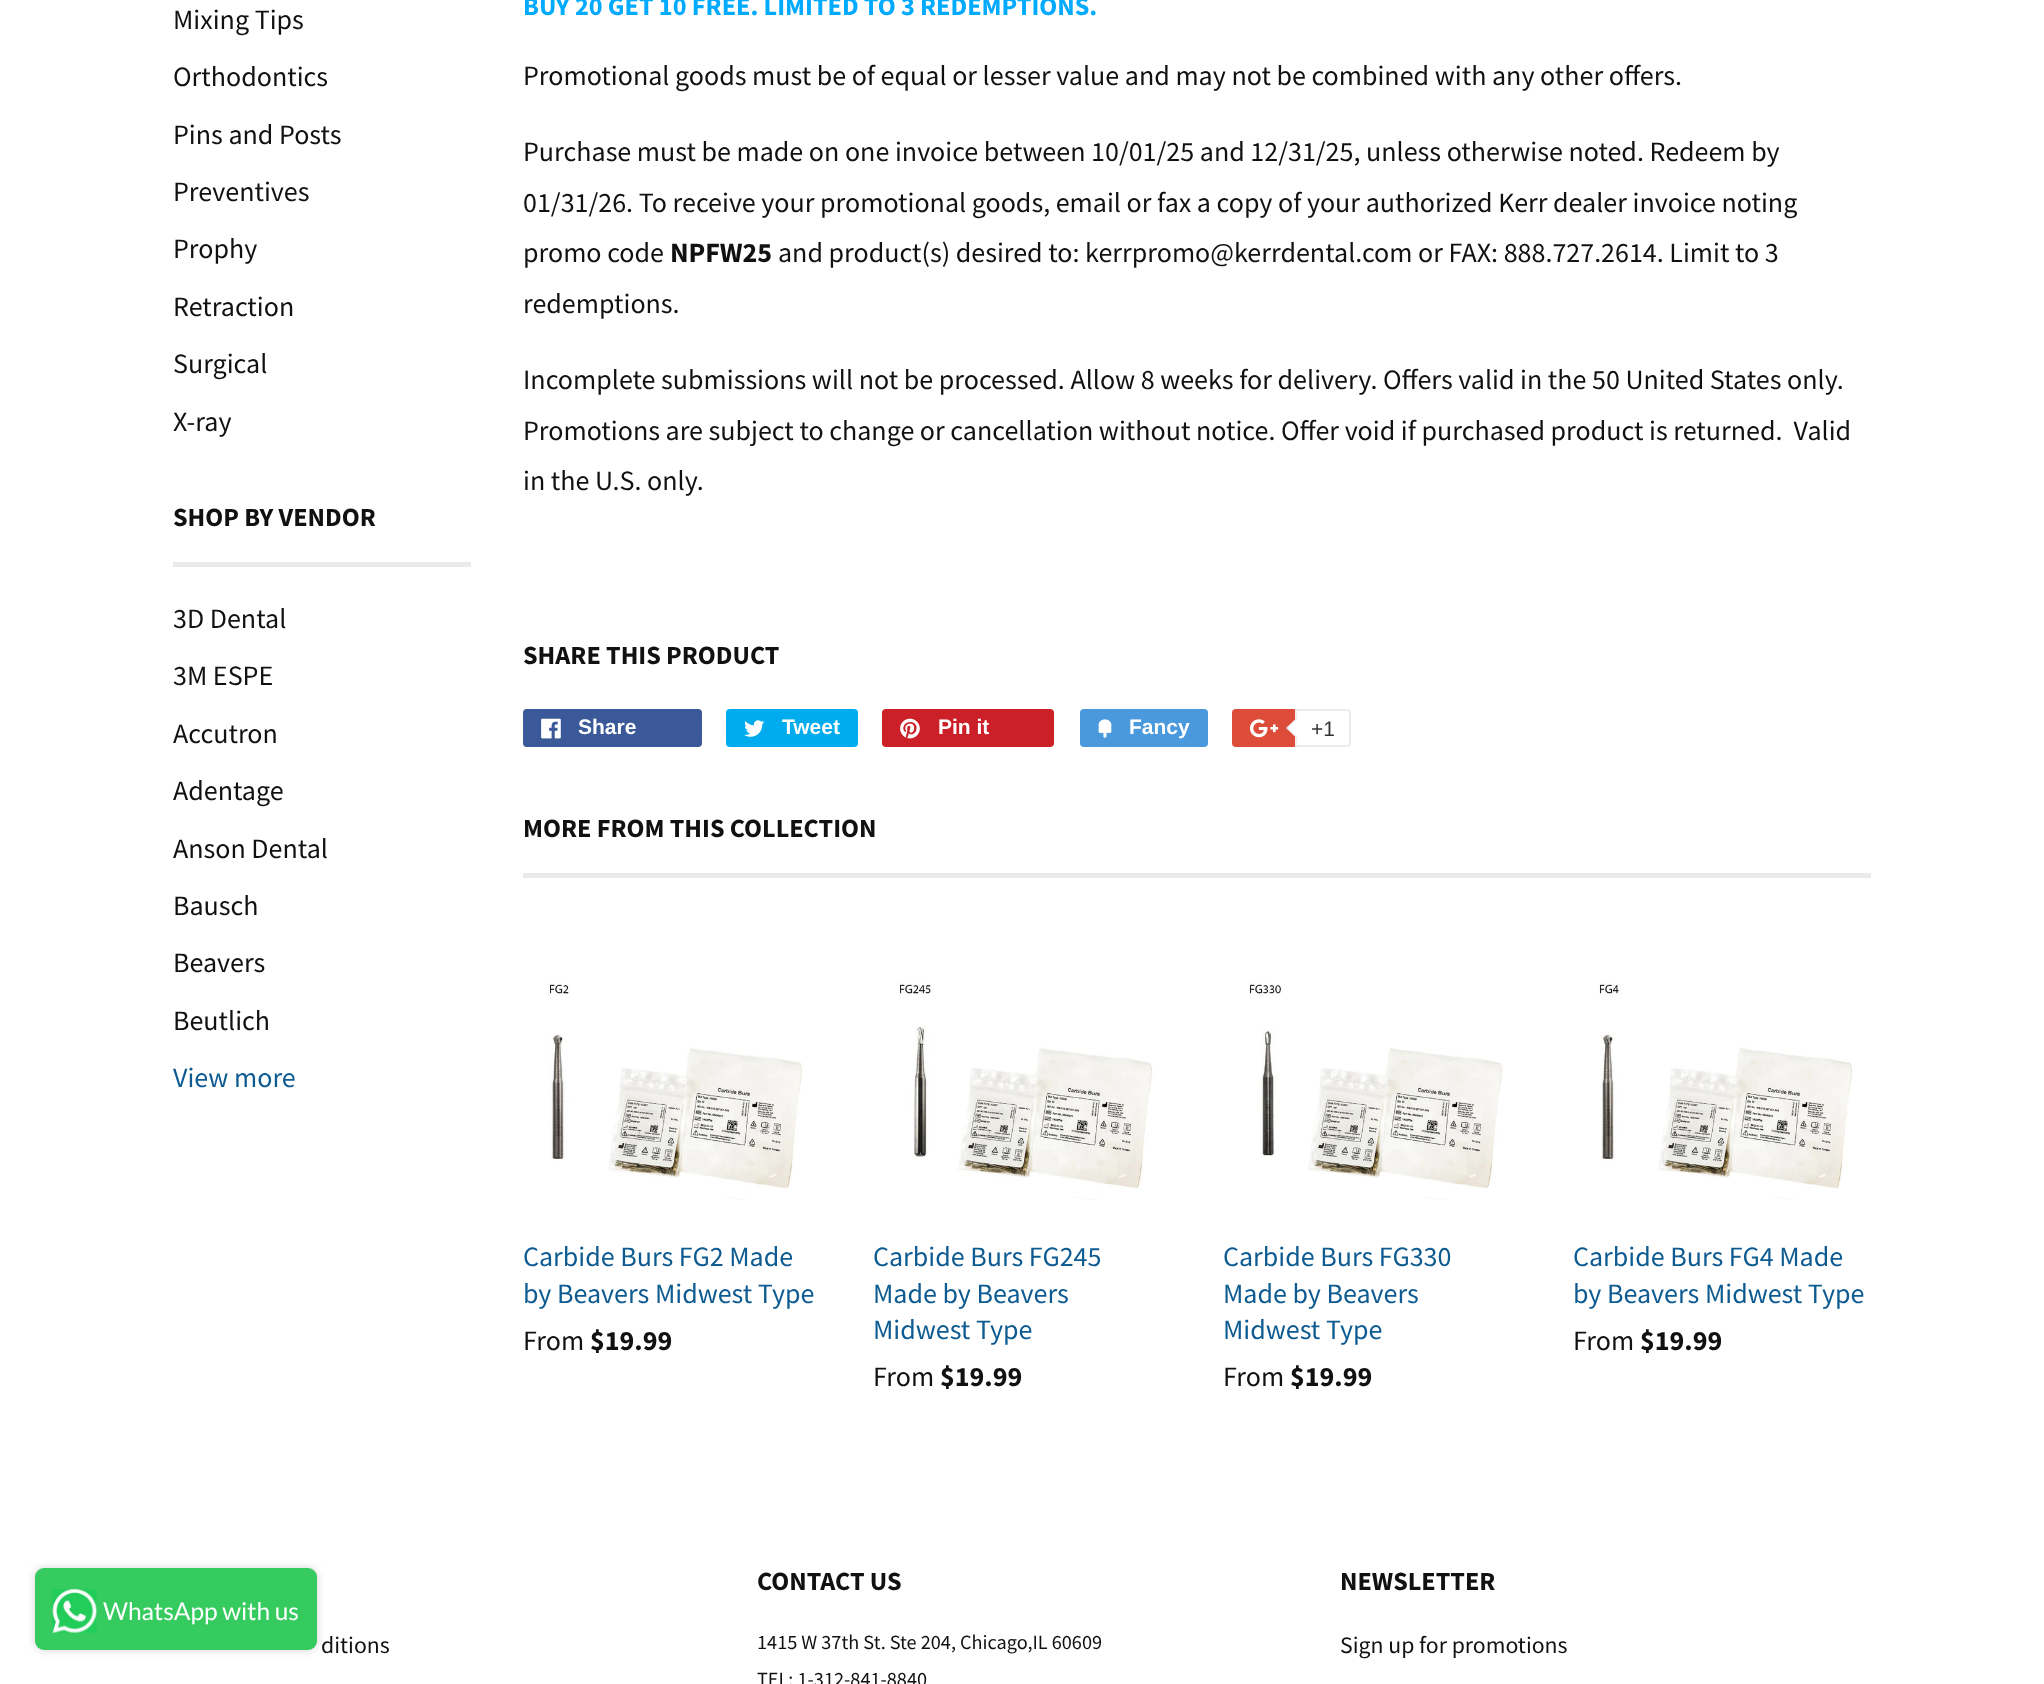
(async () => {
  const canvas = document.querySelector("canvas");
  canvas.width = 2044;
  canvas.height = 1684;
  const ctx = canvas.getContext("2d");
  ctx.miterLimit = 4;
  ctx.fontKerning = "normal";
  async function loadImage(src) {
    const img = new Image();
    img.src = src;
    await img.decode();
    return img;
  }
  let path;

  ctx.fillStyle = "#ffffff";
  ctx.fillRect(0, 0, 2044, 1684);
  ctx.fillStyle = "#eaeaea";
  ctx.fillRect(173, 562, 298, 5);
  ctx.fillStyle = "#3b5998";
  ctx.beginPath();
  ctx.roundRect(523, 709, 179, 38, 4);
  ctx.fill();
  ctx.drawImage(await loadImage("img/1.png"), 541, 718, 20, 21);
  ctx.fillStyle = "#00aced";
  ctx.beginPath();
  ctx.roundRect(726, 709, 132, 38, 4);
  ctx.fill();
  ctx.drawImage(await loadImage("img/2.png"), 744, 720, 21, 17);
  ctx.fillStyle = "#cb2027";
  ctx.beginPath();
  ctx.roundRect(882, 709, 172, 38, 4);
  ctx.fill();
  ctx.drawImage(await loadImage("img/3.png"), 900, 718, 20, 21);
  ctx.fillStyle = "#4999dc";
  ctx.beginPath();
  ctx.roundRect(1080, 709, 128, 38, 4);
  ctx.fill();
  ctx.drawImage(await loadImage("img/4.png"), 1098, 719, 14, 19);
  ctx.fillStyle = "#dd4b39";
  ctx.beginPath();
  ctx.roundRect(1232, 709, 116, 38, 4);
  ctx.fill();
  ctx.drawImage(await loadImage("img/5.png"), 1250, 719, 29, 19);
  ctx.fillStyle = "#ffffff";
  ctx.beginPath();
  ctx.roundRect(1296, 710, 54, 36, [0, 3, 3, 0]);
  ctx.fill();
  ctx.strokeStyle = "#ececec";
  ctx.lineWidth = 2;
  ctx.stroke();
  ctx.fillStyle = "#ececec";
  path = new Path2D("M1297 717.5V738.5L1286 728Z");
  ctx.fill(path);
  ctx.fillStyle = "#ffffff";
  path = new Path2D("M1298.5 717.5V738.5L1288 728Z");
  ctx.fill(path);
  ctx.fillStyle = "#eaeaea";
  ctx.fillRect(523, 873, 1348, 5);
  ctx.drawImage(await loadImage("img/6.png"), 548, 983, 256, 217);
  ctx.drawImage(await loadImage("img/7.png"), 898, 983, 256, 217);
  ctx.drawImage(await loadImage("img/8.png"), 1248, 983, 256, 217);
  ctx.drawImage(await loadImage("img/9.png"), 1598, 983, 256, 217);
  ctx.fillStyle = "#d3d3d3";
  ctx.filter = "blur(4.5px)";
  ctx.beginPath();
  ctx.roundRect(35, 1568, 282, 82, 9);
  ctx.fill();
  ctx.filter = "none";
  ctx.fillStyle = "#35cb5e";
  ctx.beginPath();
  ctx.roundRect(35, 1568, 282, 82, 9);
  ctx.fill();
  ctx.drawImage(await loadImage("img/10.png"), 52, 1589, 45, 44);
  ctx.font = "28px Source Sans Pro";
  ctx.fillStyle = "#111111";
  for (const [text, x, y] of [
    ["Mixing Tips", 173, 29],
    ["Orthodontics", 173, 86],
    ["Pins and Posts", 173, 144],
    ["Preventives", 173, 201],
    ["Prophy", 173, 258],
    ["Retraction", 173, 316],
    ["Surgical", 173, 373],
    ["X-ray", 173, 431],
  ]) {
    ctx.fillText(text, x, y);
  }
  ctx.font = "bold 26.25px Source Sans Pro";
  ctx.fillText("SHOP BY VENDOR", 173, 526);
  ctx.font = "28px Source Sans Pro";
  for (const [text, x, y] of [
    ["3D Dental", 173, 628],
    ["3M ESPE", 173, 685],
    ["Accutron", 173, 743],
    ["Adentage", 173, 800],
    ["Anson Dental", 173, 858],
    ["Bausch", 173, 915],
    ["Beavers", 173, 972],
    ["Beutlich", 173, 1030],
  ]) {
    ctx.fillText(text, x, y);
  }
  ctx.fillStyle = "#0d5b91";
  ctx.fillText("View more", 173, 1087);
  ctx.font = "bold 26.25px Source Sans Pro";
  ctx.fillStyle = "#00aaff";
  ctx.fillText("BUY 20 GET 10 FREE. LIMITED TO 3 REDEMPTIONS.", 523, 15);
  ctx.font = "28px Source Sans Pro";
  ctx.fillStyle = "#111111";
  for (const [text, x, y] of [
    ["Promotional goods must be of equal or lesser value and may not be combined with any other offers.", 523, 85],
    ["Purchase must be made on one invoice between 10/01/25 and 12/31/25, unless otherwise noted. Redeem by", 523, 161],
    ["01/31/26. To receive your promotional goods, email or fax a copy of your authorized Kerr dealer invoice noting", 523, 212],
    ["promo code", 523, 262],
  ]) {
    ctx.fillText(text, x, y);
  }
  ctx.font = "bold 28px Source Sans Pro";
  ctx.fillText("NPFW25", 670, 262);
  ctx.font = "28px Source Sans Pro";
  for (const [text, x, y] of [
    ["and product(s) desired to: kerrpromo@kerrdental.com or FAX: 888.727.2614. Limit to 3", 778, 262],
    ["redemptions.", 523, 313],
    ["Incomplete submissions will not be processed. Allow 8 weeks for delivery. Offers valid in the 50 United States only.", 523, 389],
    ["Promotions are subject to change or cancellation without notice. Offer void if purchased product is returned.  Valid", 523, 440],
    ["in the U.S. only.", 523, 490],
  ]) {
    ctx.fillText(text, x, y);
  }
  ctx.font = "bold 26.25px Source Sans Pro";
  ctx.fillText("SHARE THIS PRODUCT", 523, 664);
  ctx.font = "bold 21px Liberation Sans";
  ctx.fillStyle = "#ffffff";
  for (const [text, x, y] of [
    ["Share", 578, 734],
    ["Tweet", 782, 734],
    ["Pin it", 938, 734],
    ["Fancy", 1129, 734],
  ]) {
    ctx.fillText(text, x, y);
  }
  ctx.font = "21px Liberation Sans";
  ctx.fillStyle = "#333333";
  ctx.fillText("+1", 1311, 736);
  ctx.font = "bold 26.25px Source Sans Pro";
  ctx.fillStyle = "#111111";
  ctx.fillText("MORE FROM THIS COLLECTION", 523, 837);
  ctx.font = "28px Source Sans Pro";
  ctx.fillStyle = "#0d5b91";
  ctx.fillText("Carbide Burs FG2 Made", 523, 1266);
  ctx.fillText("by Beavers Midwest Type", 523, 1303);
  ctx.fillStyle = "#111111";
  ctx.fillText("From", 523, 1350);
  ctx.font = "bold 28px Source Sans Pro";
  ctx.fillText("$19.99", 590, 1350);
  ctx.font = "28px Source Sans Pro";
  ctx.fillStyle = "#0d5b91";
  for (const [text, x, y] of [
    ["Carbide Burs FG245", 873, 1266],
    ["Made by Beavers", 873, 1303],
    ["Midwest Type", 873, 1339],
  ]) {
    ctx.fillText(text, x, y);
  }
  ctx.fillStyle = "#111111";
  ctx.fillText("From", 873, 1386);
  ctx.font = "bold 28px Source Sans Pro";
  ctx.fillText("$19.99", 940, 1386);
  ctx.font = "28px Source Sans Pro";
  ctx.fillStyle = "#0d5b91";
  for (const [text, x, y] of [
    ["Carbide Burs FG330", 1223, 1266],
    ["Made by Beavers", 1223, 1303],
    ["Midwest Type", 1223, 1339],
  ]) {
    ctx.fillText(text, x, y);
  }
  ctx.fillStyle = "#111111";
  ctx.fillText("From", 1223, 1386);
  ctx.font = "bold 28px Source Sans Pro";
  ctx.fillText("$19.99", 1290, 1386);
  ctx.font = "28px Source Sans Pro";
  ctx.fillStyle = "#0d5b91";
  ctx.fillText("Carbide Burs FG4 Made", 1573, 1266);
  ctx.fillText("by Beavers Midwest Type", 1573, 1303);
  ctx.fillStyle = "#111111";
  ctx.fillText("From", 1573, 1350);
  ctx.font = "bold 28px Source Sans Pro";
  ctx.fillText("$19.99", 1640, 1350);
  ctx.font = "24.5px Lato";
  ctx.fillStyle = "#ffffff";
  ctx.fillText("WhatsApp with us", 103, 1620);
  ctx.font = "23.75px Source Sans Pro";
  ctx.fillStyle = "#111111";
  ctx.fillText("ditions", 321, 1653);
  ctx.font = "bold 26.25px Source Sans Pro";
  ctx.fillText("CONTACT US", 757, 1590);
  ctx.font = "20.25px Source Sans Pro";
  ctx.fillText("1415 W 37th St. Ste 204, Chicago,IL 60609", 757, 1649);
  ctx.fillText("TEL: 1-312-841-8840", 757, 1686);
  ctx.font = "bold 26.25px Source Sans Pro";
  ctx.fillText("NEWSLETTER", 1340, 1590);
  ctx.font = "23.75px Source Sans Pro";
  ctx.fillText("Sign up for promotions", 1340, 1653);
})();
